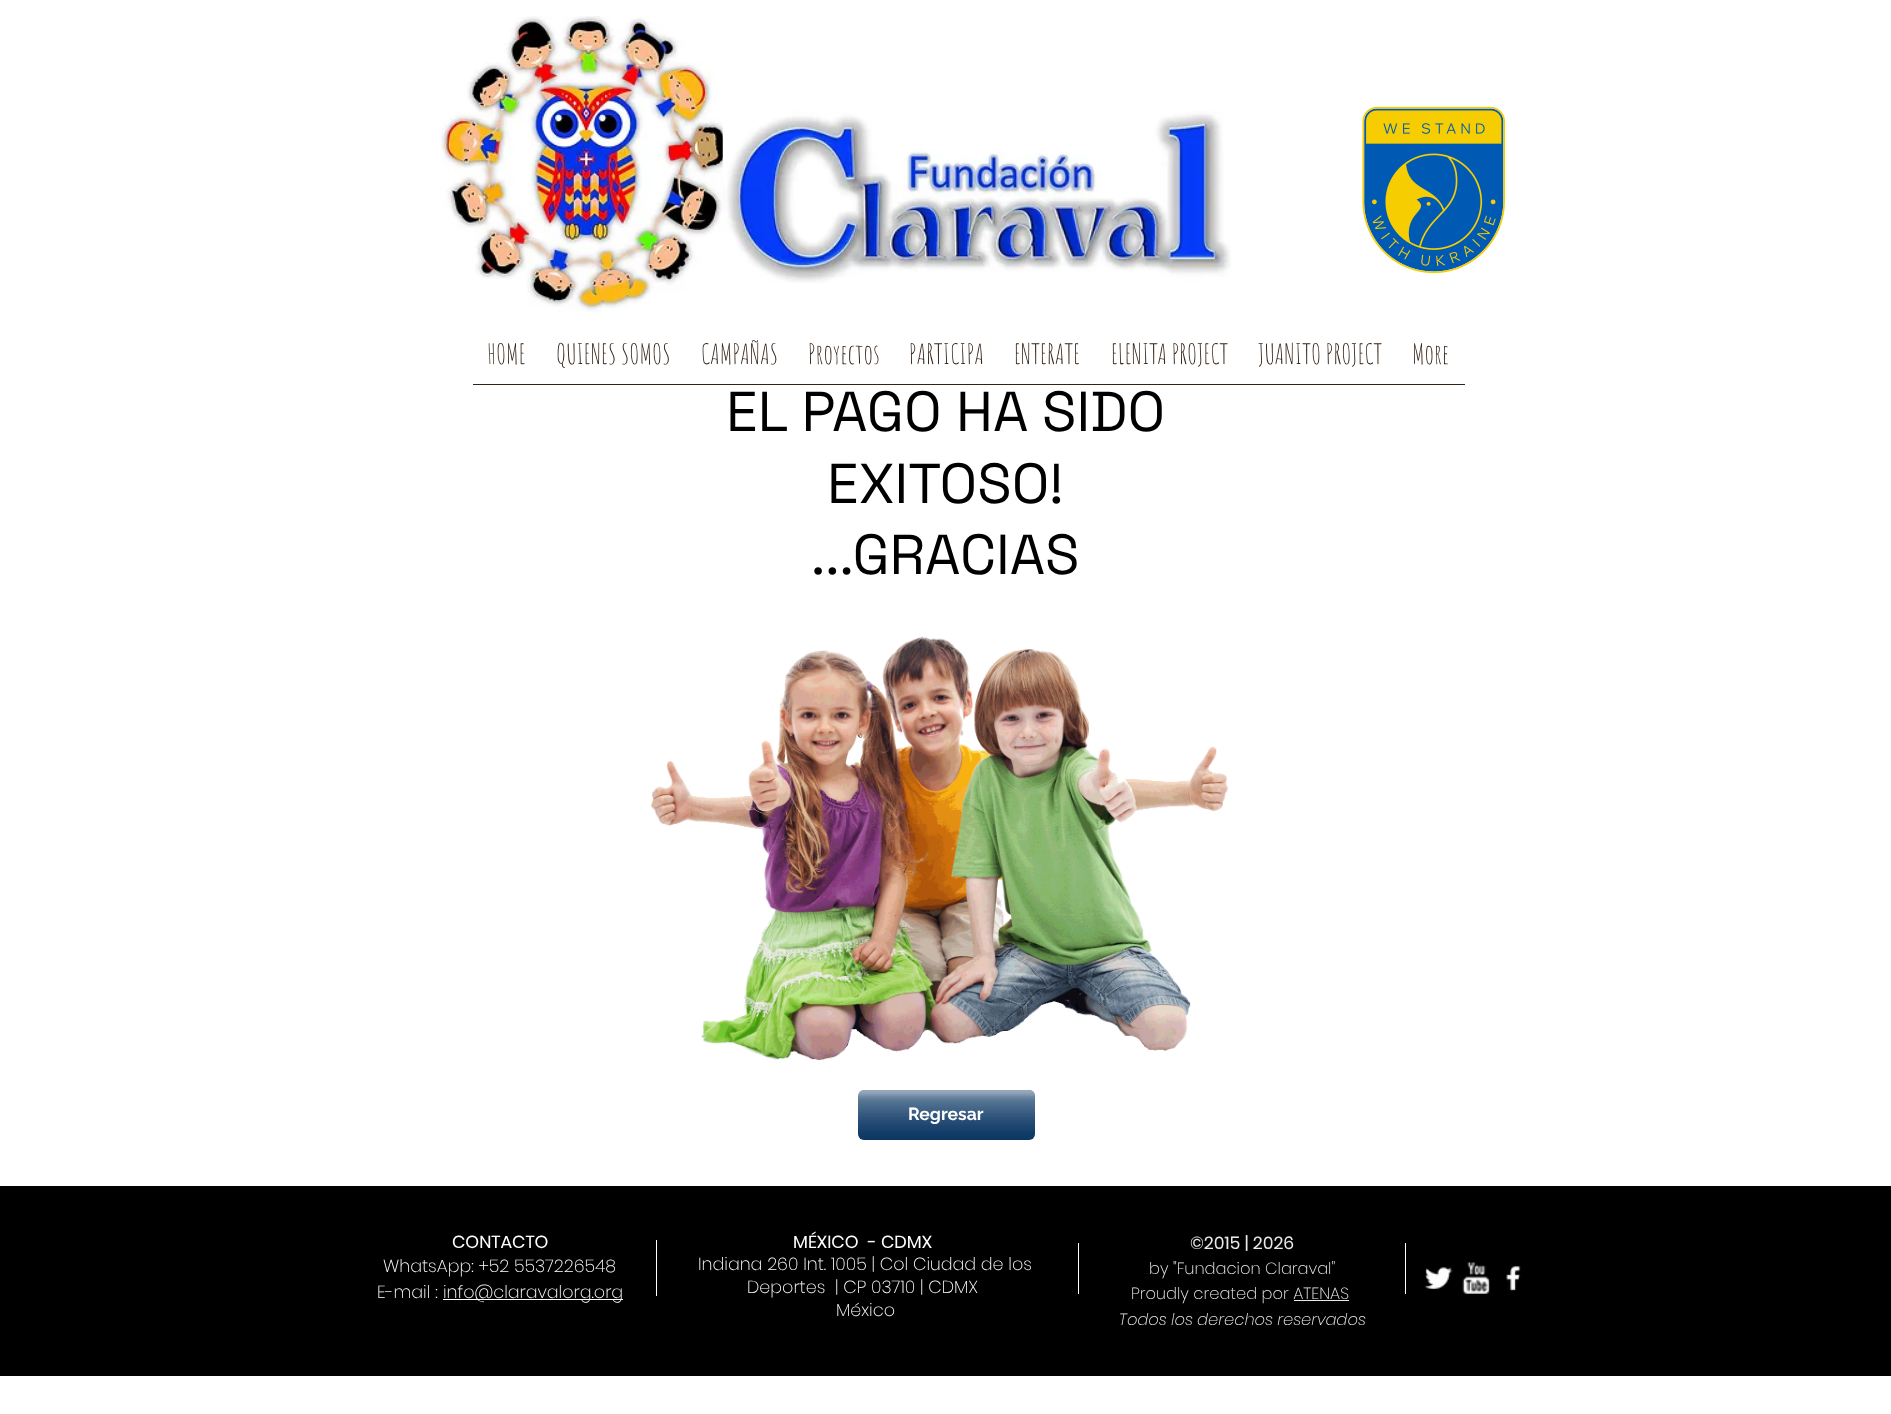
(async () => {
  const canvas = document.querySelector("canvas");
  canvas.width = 1891;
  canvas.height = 1414;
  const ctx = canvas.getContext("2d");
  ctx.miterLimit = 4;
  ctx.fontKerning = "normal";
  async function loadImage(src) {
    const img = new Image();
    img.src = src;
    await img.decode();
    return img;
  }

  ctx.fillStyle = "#ffffff";
  ctx.fillRect(0, 0, 1891, 1414);
  ctx.drawImage(await loadImage("img/1.png"), 440, 16, 292, 297);
  ctx.drawImage(await loadImage("img/2.png"), 722, 109, 509, 174);
  ctx.drawImage(await loadImage("img/3.png"), 1362, 106, 143, 168);
  ctx.fillStyle = "#342216";
  ctx.fillRect(473, 384, 992, 1);
  ctx.drawImage(await loadImage("img/4.png"), 651, 636, 578, 425);
  ctx.fillStyle = "#002e5d";
  ctx.beginPath();
  ctx.roundRect(858, 1090, 177, 50, 6);
  ctx.fill();
  ctx.drawImage(await loadImage("img/5.png"), 858, 1090, 177, 50);
  for (const [x, y, w, h, color] of [
    [0, 1186, 1891, 190, "#000000"],
    [443, 1299, 180, 1, "#ffffff"],
    [656, 1240, 1, 56, "#ffffff"],
    [1078, 1243, 1, 51, "#ffffff"],
    [1294, 1300, 55, 1, "#eaeaea"],
    [1405, 1243, 1, 51, "#ffffff"],
  ]) {
    ctx.fillStyle = color;
    ctx.fillRect(x, y, w, h);
  }
  ctx.drawImage(await loadImage("img/6.png"), 1425, 1267, 28, 23);
  ctx.drawImage(await loadImage("img/7.png"), 1462, 1262, 28, 32);
  ctx.drawImage(await loadImage("img/8.png"), 1506, 1266, 15, 25);
  ctx.font = "27.5px Amatic SC";
  ctx.fillStyle = "#342216";
  for (const [text, x, y] of [
    ["HOME", 487, 364],
    ["QUIENES SOMOS", 556, 364],
    ["CAMPAÑAS", 701, 364],
    ["Proyectos", 808, 364],
    ["PARTICIPA", 909, 364],
    ["ENTERATE", 1014, 364],
    ["ELENITA PROJECT", 1111, 364],
    ["JUANITO PROJECT", 1258, 364],
    ["More", 1412, 364],
  ]) {
    ctx.fillText(text, x, y);
  }
  ctx.font = "56.25px Space Grotesk";
  ctx.fillStyle = "#000000";
  for (const [text, x, y] of [
    ["EL PAGO HA SIDO", 726, 431],
    ["EXITOSO!", 827, 503],
    ["...GRACIAS", 811, 574],
  ]) {
    ctx.fillText(text, x, y);
  }
  ctx.font = "bold 17.5px Raleway";
  ctx.fillStyle = "#ffffff";
  ctx.fillText("Regresar", 908, 1120);
  ctx.font = "17.5px Poppins";
  ctx.fillText("CONTACTO", 452, 1248);
  ctx.font = "200 17.5px Poppins";
  for (const [text, x, y] of [
    ["WhatsApp: +52 5537226548", 383, 1272],
    ["E-mail :", 377, 1298],
    ["info@claravalorg.org", 443, 1298],
  ]) {
    ctx.fillText(text, x, y);
  }
  ctx.font = "17.5px Poppins";
  ctx.fillText("MÉXICO", 793, 1248);
  ctx.fillText("- CDMX", 868, 1248);
  ctx.font = "200 17.5px Poppins";
  for (const [text, x, y] of [
    ["Indiana 260 Int. 1005 | Col Ciudad de los", 698, 1270],
    ["Deportes  | CP 03710 | CDMX", 747, 1293],
    ["México", 836, 1316],
  ]) {
    ctx.fillText(text, x, y);
  }
  ctx.font = "17.5px Poppins";
  ctx.fillStyle = "#eaeaea";
  ctx.fillText("©2015 | 2026", 1190, 1249);
  ctx.font = "200 16.25px Poppins";
  ctx.fillText("by \"Fundacion Claraval\"", 1149, 1274);
  ctx.fillText("Proudly created por ATENAS", 1131, 1299);
  ctx.font = "italic 200 16.25px Poppins";
  ctx.fillText("Todos los derechos reservados", 1119, 1325);
})();
